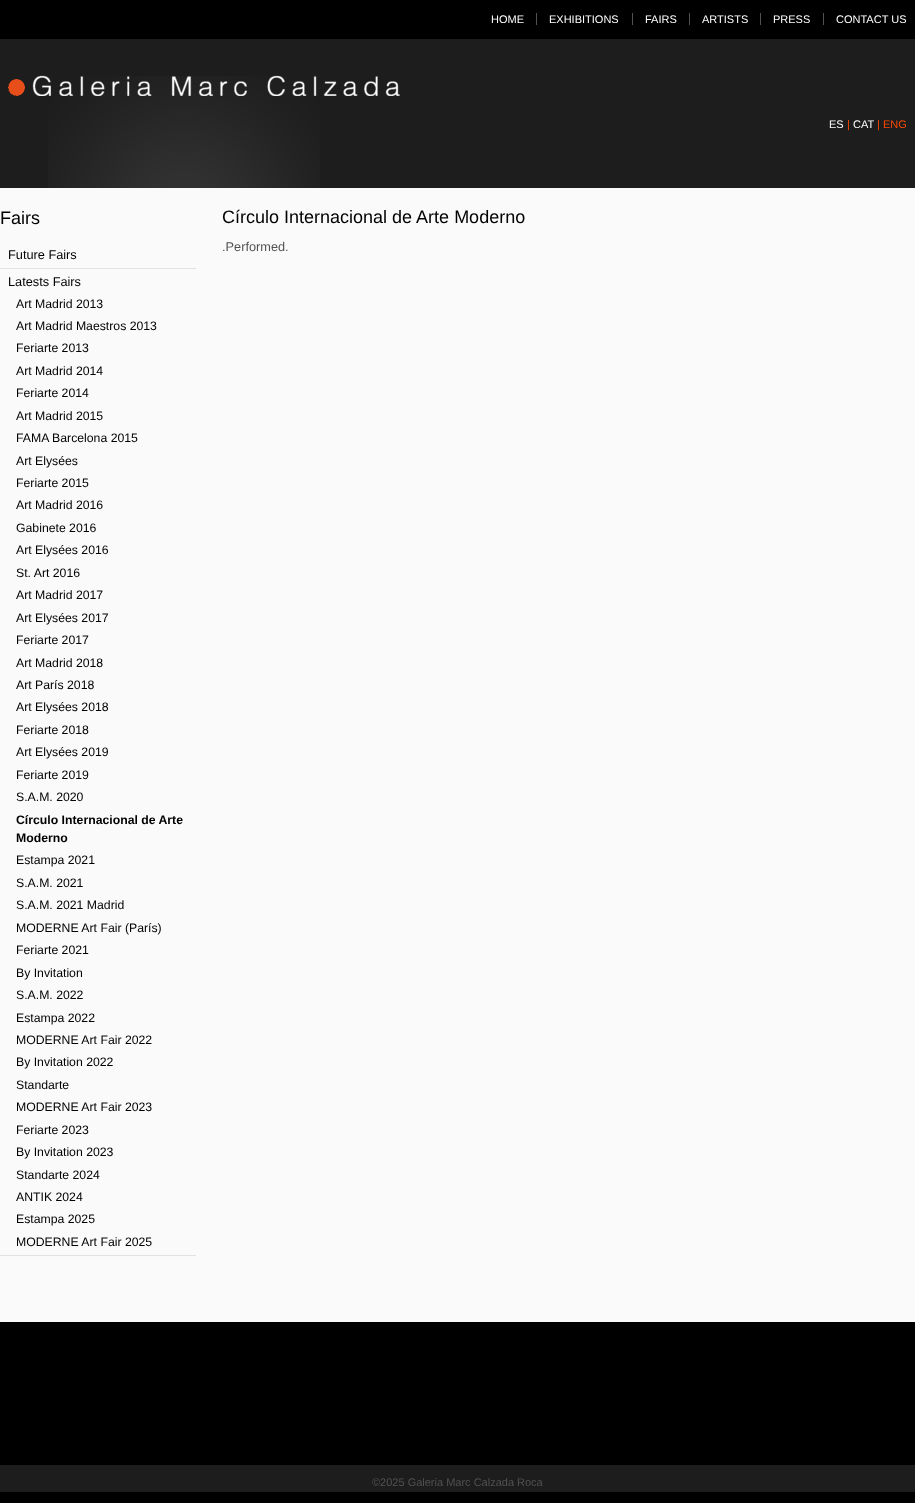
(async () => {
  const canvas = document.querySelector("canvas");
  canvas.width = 915;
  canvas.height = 1503;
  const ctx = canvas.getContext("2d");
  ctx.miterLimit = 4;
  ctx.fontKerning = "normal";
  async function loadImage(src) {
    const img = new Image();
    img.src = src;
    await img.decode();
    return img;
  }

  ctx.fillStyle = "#000000";
  ctx.fillRect(0, 0, 915, 1503);
  for (const [x, y, w, h, color] of [
    [536, 13, 1, 12, "#525252"],
    [632, 13, 1, 12, "#525252"],
    [689, 13, 1, 12, "#525252"],
    [760, 13, 1, 12, "#525252"],
    [823, 13, 1, 12, "#525252"],
    [0, 39, 915, 149, "#1d1d1d"],
  ]) {
    ctx.fillStyle = color;
    ctx.fillRect(x, y, w, h);
  }
  ctx.drawImage(await loadImage("img/1.png"), 48, 76, 272, 112);
  ctx.drawImage(await loadImage("img/2.png"), 8, 75, 392, 21);
  for (const [x, y, w, h, color] of [
    [0, 188, 915, 1134, "#fafafa"],
    [0, 268, 196, 1, "#e2e2e2"],
    [0, 1255, 196, 1, "#e2e2e2"],
    [0, 1465, 915, 27, "#1d1d1d"],
  ]) {
    ctx.fillStyle = color;
    ctx.fillRect(x, y, w, h);
  }
  ctx.font = "11px Liberation Sans";
  ctx.fillStyle = "#ffffff";
  for (const [text, x, y] of [
    ["HOME", 491, 23],
    ["EXHIBITIONS", 549, 23],
    ["FAIRS", 645, 23],
    ["ARTISTS", 702, 23],
    ["PRESS", 773, 23],
    ["CONTACT US", 836, 23],
    ["ES", 829, 128],
  ]) {
    ctx.fillText(text, x, y);
  }
  ctx.fillStyle = "#fb4900";
  ctx.fillText("|", 847, 128);
  ctx.fillStyle = "#ffffff";
  ctx.fillText("CAT", 853, 128);
  ctx.fillStyle = "#fb4900";
  ctx.fillText("| ENG", 877, 128);
  ctx.font = "18px Liberation Sans";
  ctx.fillStyle = "#000000";
  ctx.fillText("Fairs", 0, 224);
  ctx.font = "12.75px Liberation Sans";
  ctx.fillText("Future Fairs", 8, 259);
  ctx.fillText("Latests Fairs", 8, 286);
  ctx.font = "12.25px Liberation Sans";
  for (const [text, x, y] of [
    ["Art Madrid 2013", 16, 308],
    ["Art Madrid Maestros 2013", 16, 330],
    ["Feriarte 2013", 16, 352],
    ["Art Madrid 2014", 16, 375],
    ["Feriarte 2014", 16, 397],
    ["Art Madrid 2015", 16, 420],
    ["FAMA Barcelona 2015", 16, 442],
    ["Art Elysées", 16, 465],
    ["Feriarte 2015", 16, 487],
    ["Art Madrid 2016", 16, 509],
    ["Gabinete 2016", 16, 532],
    ["Art Elysées 2016", 16, 554],
    ["St. Art 2016", 16, 577],
    ["Art Madrid 2017", 16, 599],
    ["Art Elysées 2017", 16, 622],
    ["Feriarte 2017", 16, 644],
    ["Art Madrid 2018", 16, 667],
    ["Art París 2018", 16, 689],
    ["Art Elysées 2018", 16, 711],
    ["Feriarte 2018", 16, 734],
    ["Art Elysées 2019", 16, 756],
    ["Feriarte 2019", 16, 779],
    ["S.A.M. 2020", 16, 801],
  ]) {
    ctx.fillText(text, x, y);
  }
  ctx.font = "bold 12.25px Liberation Sans";
  ctx.fillText("Círculo Internacional de Arte", 16, 824);
  ctx.fillText("Moderno", 16, 842);
  ctx.font = "12.25px Liberation Sans";
  for (const [text, x, y] of [
    ["Estampa 2021", 16, 864],
    ["S.A.M. 2021", 16, 887],
    ["S.A.M. 2021 Madrid", 16, 909],
    ["MODERNE Art Fair (París)", 16, 932],
    ["Feriarte 2021", 16, 954],
    ["By Invitation", 16, 977],
    ["S.A.M. 2022", 16, 999],
    ["Estampa 2022", 16, 1022],
    ["MODERNE Art Fair 2022", 16, 1044],
    ["By Invitation 2022", 16, 1066],
    ["Standarte", 16, 1089],
    ["MODERNE Art Fair 2023", 16, 1111],
    ["Feriarte 2023", 16, 1134],
    ["By Invitation 2023", 16, 1156],
    ["Standarte 2024", 16, 1179],
    ["ANTIK 2024", 16, 1201],
    ["Estampa 2025", 16, 1223],
    ["MODERNE Art Fair 2025", 16, 1246],
  ]) {
    ctx.fillText(text, x, y);
  }
  ctx.font = "18px Liberation Sans";
  ctx.fillText("Círculo Internacional de Arte Moderno", 222, 223);
  ctx.font = "12.75px Liberation Sans";
  ctx.fillStyle = "#515151";
  ctx.fillText(".Performed.", 222, 251);
  ctx.font = "11px Liberation Sans";
  ctx.fillText("©2025 Galeria Marc Calzada Roca", 372, 1486);
})();
